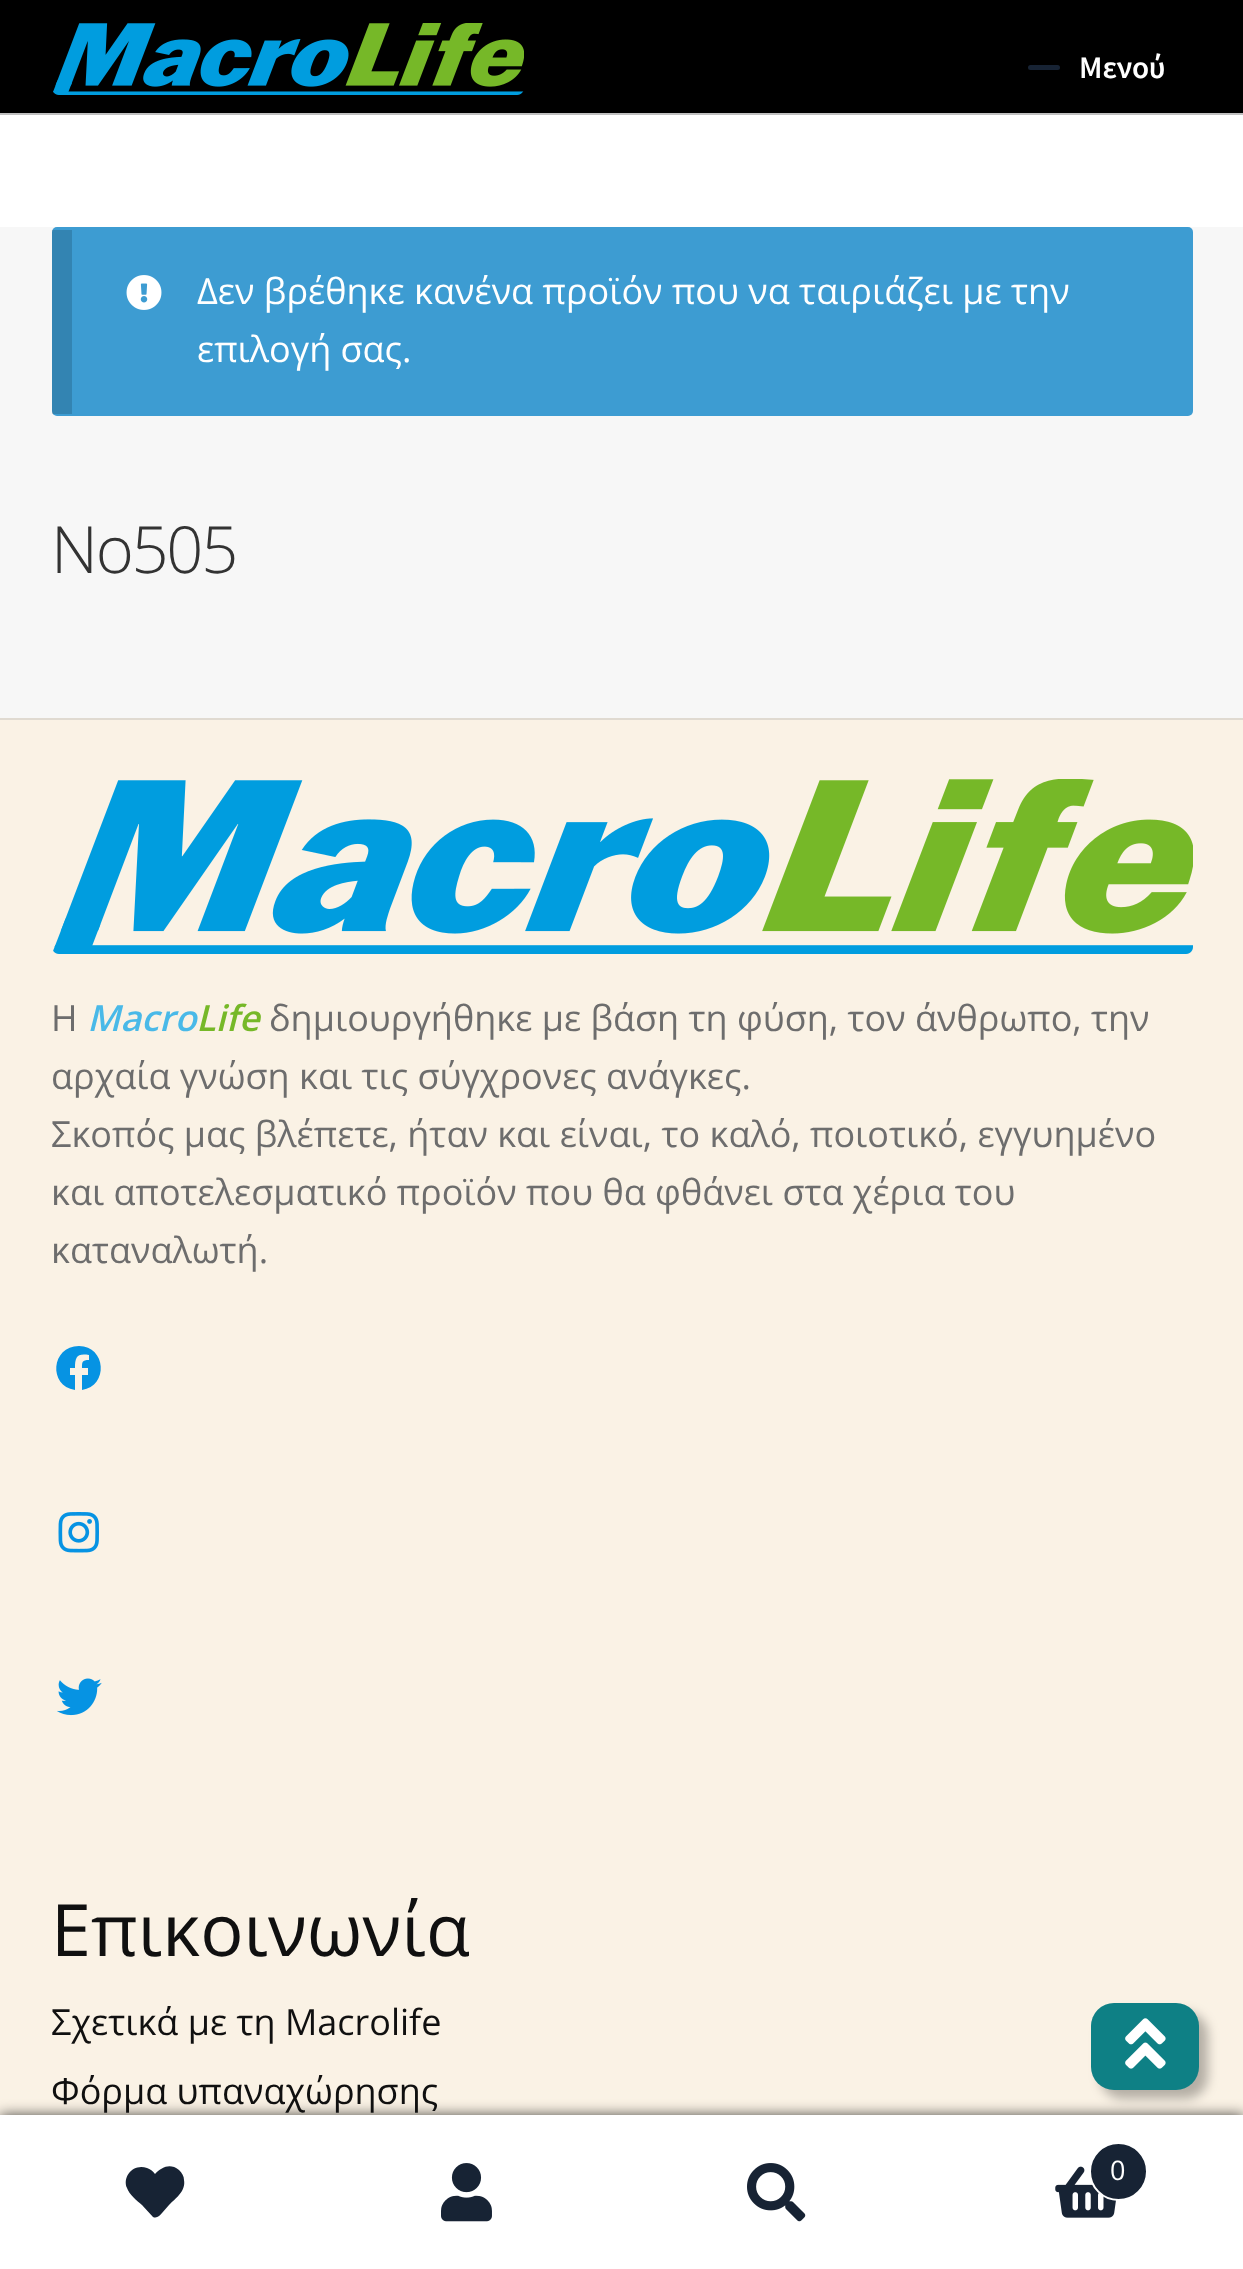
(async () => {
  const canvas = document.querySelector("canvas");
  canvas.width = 1243;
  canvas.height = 2269;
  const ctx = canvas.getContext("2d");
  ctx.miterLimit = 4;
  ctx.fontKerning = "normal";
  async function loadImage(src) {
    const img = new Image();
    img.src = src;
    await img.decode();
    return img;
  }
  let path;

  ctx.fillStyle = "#ffffff";
  ctx.fillRect(0, 0, 1243, 2269);
  ctx.fillStyle = "#000000";
  ctx.fillRect(0, 0, 1243, 113);
  ctx.fillStyle = "#bfbfbf";
  ctx.fillRect(0, 113, 1243, 2);
  ctx.drawImage(await loadImage("img/1.png"), 53, 23, 471, 72);
  ctx.fillStyle = "#172334";
  ctx.beginPath();
  ctx.roundRect(1028, 65, 32, 5, 2.5);
  ctx.fill();
  ctx.fillStyle = "#f7f7f7";
  ctx.fillRect(0, 227, 1243, 491);
  ctx.fillStyle = "#3d9cd2";
  ctx.beginPath();
  ctx.roundRect(52, 227, 1141, 189, 5);
  ctx.fill();
  ctx.fillStyle = "rgba(0, 0, 0, 0.15)";
  ctx.fillRect(52, 230, 20, 184);
  ctx.drawImage(await loadImage("img/2.png"), 126, 275, 36, 35);
  ctx.fillStyle = "#faf2e5";
  ctx.fillRect(0, 720, 1243, 1395);
  ctx.fillStyle = "#e0dad1";
  ctx.fillRect(0, 718, 1243, 2);
  ctx.drawImage(await loadImage("img/3.png"), 53, 779, 1140, 175);
  ctx.fillStyle = "#0693e3";
  path = new Path2D("M79 1346C51 1346 48 1386 75 1390V1375H70V1368H75C75 1357 77 1353 89 1355V1360C82 1360 82 1362 82 1368H88V1375H82V1390C109 1386 106 1346 79 1346Z");
  ctx.fill(path);
  ctx.drawImage(await loadImage("img/4.png"), 58, 1512, 41, 41);
  ctx.drawImage(await loadImage("img/5.png"), 57, 1678, 45, 38);
  ctx.fillStyle = "rgba(0, 0, 0, 0.7)";
  ctx.filter = "blur(7px)";
  ctx.beginPath();
  ctx.rect(0, 2115, 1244, 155);
  ctx.fill();
  ctx.filter = "none";
  ctx.fillStyle = "rgba(0, 0, 0, 0.28)";
  ctx.filter = "blur(5.5px)";
  ctx.beginPath();
  ctx.roundRect(1100, 2012, 108, 87, 23);
  ctx.fill();
  ctx.filter = "none";
  ctx.fillStyle = "#ffffff";
  ctx.fillRect(0, 2115, 1243, 2);
  ctx.fillRect(0, 2117, 1243, 152);
  ctx.fillStyle = "#172334";
  path = new Path2D("M179 2170C182 2173 184 2176 184 2180C186 2191 176 2198 169 2205L162 2213C160 2215 157 2219 153 2217L142 2205C137 2201 129 2194 127 2188C122 2176 134 2163 147 2168C150 2169 153 2171 155 2174C162 2167 170 2163 179 2170Z");
  ctx.fill(path);
  ctx.drawImage(await loadImage("img/6.png"), 441, 2163, 51, 59);
  ctx.drawImage(await loadImage("img/7.png"), 747, 2163, 59, 59);
  ctx.drawImage(await loadImage("img/8.png"), 1055, 2166, 61, 52);
  ctx.beginPath();
  ctx.arc(1118.5, 2171.5, 28.5, 0, Math.PI * 2);
  ctx.fill();
  ctx.strokeStyle = "#ffffff";
  ctx.lineWidth = 2;
  ctx.stroke();
  ctx.fillStyle = "#0e8085";
  ctx.beginPath();
  ctx.roundRect(1091, 2003, 108, 87, 23);
  ctx.fill();
  ctx.drawImage(await loadImage("img/9.png"), 1125, 2018, 41, 51);
  ctx.font = "600 31.5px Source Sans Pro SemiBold";
  ctx.fillStyle = "#ffffff";
  ctx.fillText("Μενού", 1079, 78);
  ctx.font = "36px Open Sans";
  ctx.fillText("Δεν βρέθηκε κανένα προϊόν που να ταιριάζει με την", 197, 304);
  ctx.fillText("επιλογή σας.", 197, 362);
  ctx.letterSpacing = "-2.25px";
  ctx.font = "300 65px Open Sans";
  ctx.fillStyle = "#333333";
  ctx.fillText("Νο505", 51, 573);
  ctx.letterSpacing = "0px";
  ctx.font = "36px Open Sans";
  ctx.fillStyle = "#6d6d6d";
  ctx.fillText("Η", 51, 1031);
  ctx.font = "italic 600 36px Open Sans";
  ctx.fillStyle = "#49b9e8";
  ctx.fillText("Macro", 87, 1031);
  ctx.fillStyle = "#76b828";
  ctx.fillText("Life", 196, 1031);
  ctx.font = "36px Open Sans";
  ctx.fillStyle = "#6d6d6d";
  for (const [text, x, y] of [
    ["δημιουργήθηκε με βάση τη φύση, τον άνθρωπο, την", 269, 1031],
    ["αρχαία γνώση και τις σύγχρονες ανάγκες.", 51, 1089],
    ["Σκοπός μας βλέπετε, ήταν και είναι, το καλό, ποιοτικό, εγγυημένο", 51, 1147],
    ["και αποτελεσματικό προϊόν που θα φθάνει στα χέρια του", 51, 1205],
    ["καταναλωτή.", 51, 1263],
  ]) {
    ctx.fillText(text, x, y);
  }
  ctx.font = "72px Open Sans";
  ctx.fillStyle = "#101010";
  ctx.fillText("Επικοινωνία", 51, 1956);
  ctx.font = "36px Open Sans";
  ctx.fillText("Σχετικά με τη Macrolife", 51, 2035);
  ctx.fillText("Φόρμα υπαναχώρησης", 51, 2104);
  ctx.font = "27px Open Sans";
  ctx.fillStyle = "#ffffff";
  ctx.fillText("0", 1110, 2180);
})();
